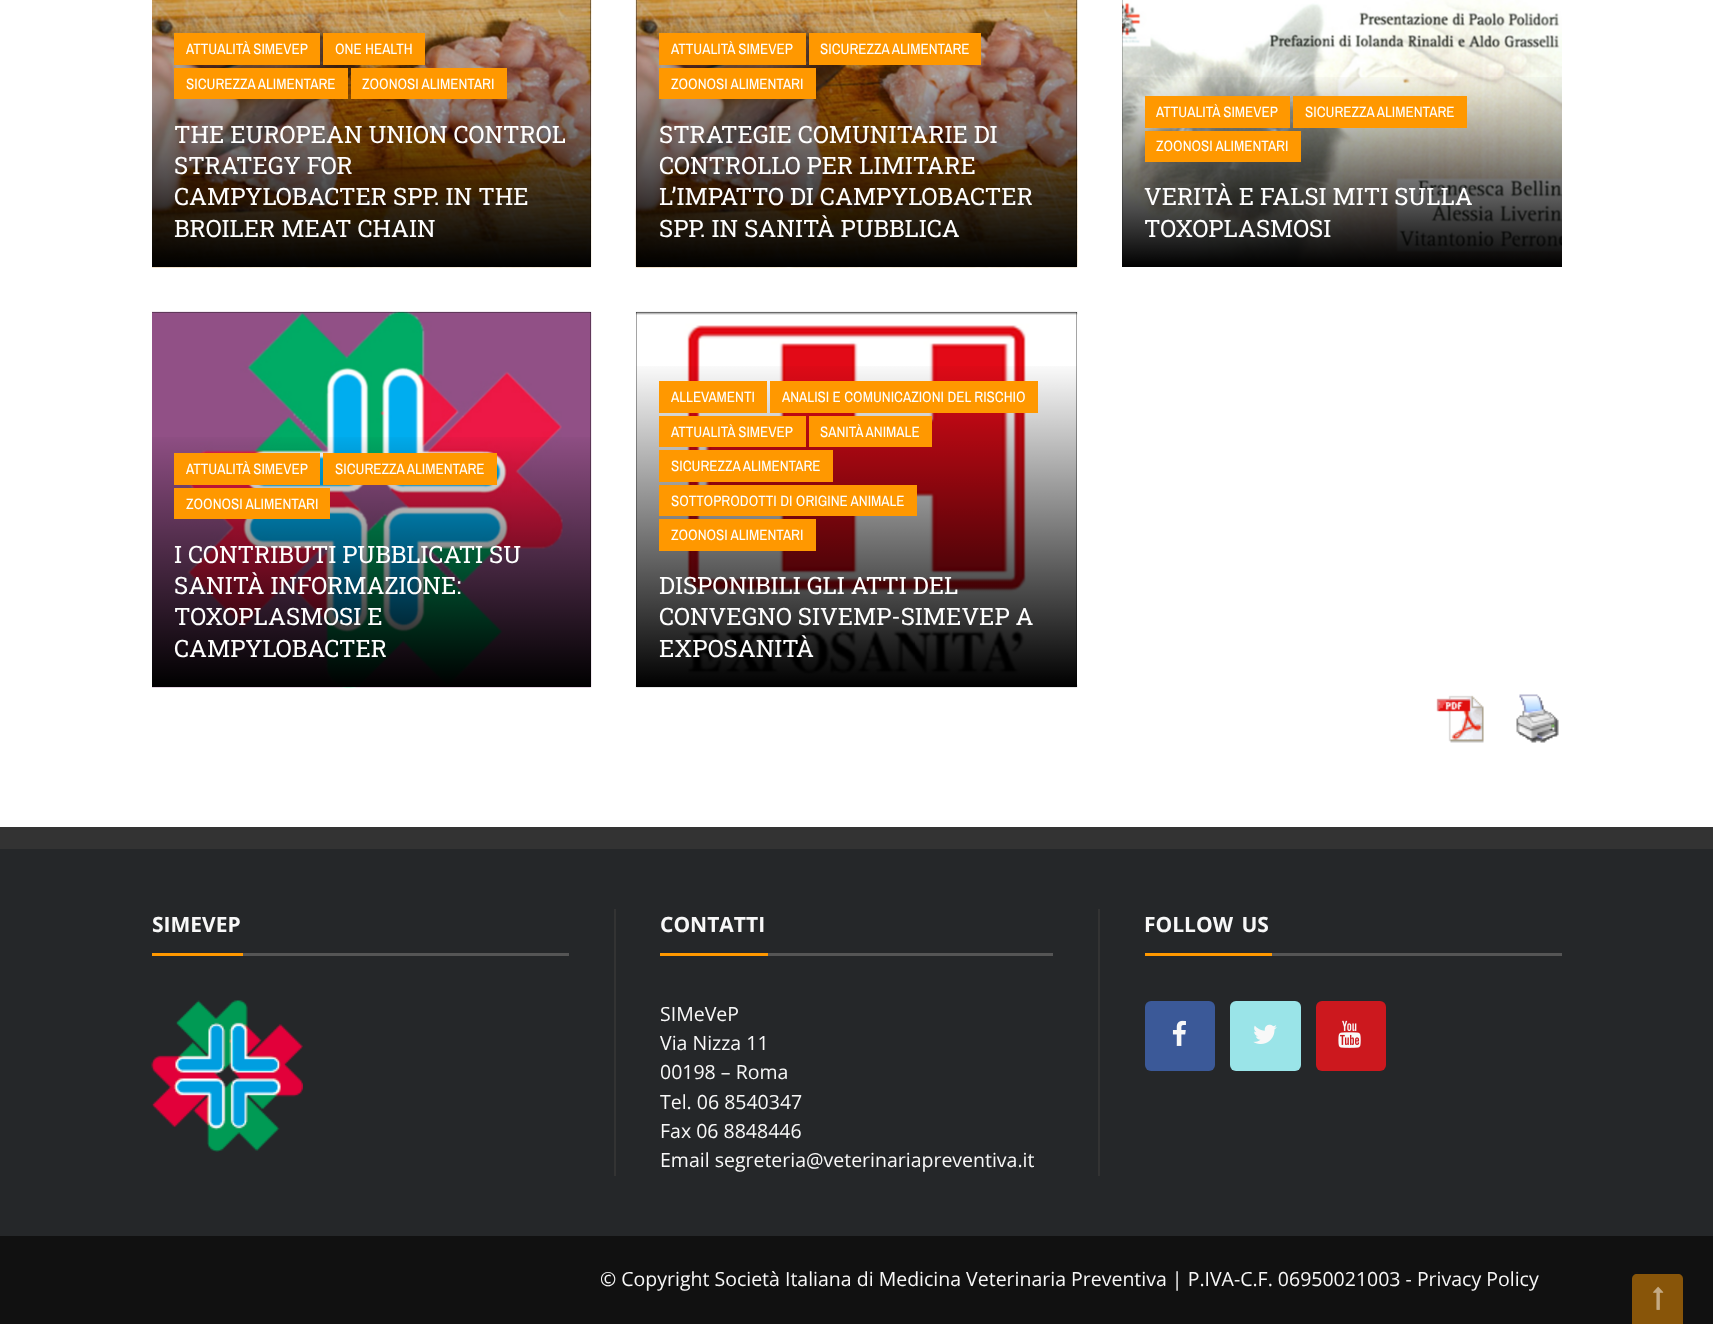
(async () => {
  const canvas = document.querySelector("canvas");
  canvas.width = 1713;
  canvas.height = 1324;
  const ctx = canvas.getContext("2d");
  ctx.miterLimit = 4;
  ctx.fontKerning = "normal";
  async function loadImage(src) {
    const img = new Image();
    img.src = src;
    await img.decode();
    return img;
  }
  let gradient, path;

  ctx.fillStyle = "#ffffff";
  ctx.fillRect(0, 0, 1713, 1324);
  ctx.fillStyle = "#111111";
  ctx.fillRect(590, 0, 1, 265);
  ctx.drawImage(await loadImage("img/1.png"), 152, 0, 440, 268);
  gradient = ctx.createLinearGradient(371, 10, 371, 267);
  gradient.addColorStop(0, "rgba(0, 0, 0, 0)");
  gradient.addColorStop(1, "#000000");
  ctx.fillStyle = gradient;
  ctx.fillRect(152, 16, 439, 251);
  for (const [x, y, w, h, color] of [
    [174, 33, 146, 32, "#ff9800"],
    [323, 33, 102, 32, "#ff9800"],
    [174, 68, 174, 31, "#ff9800"],
    [351, 68, 156, 31, "#ff9800"],
    [636, 0, 441, 265, "#111111"],
  ]) {
    ctx.fillStyle = color;
    ctx.fillRect(x, y, w, h);
  }
  ctx.drawImage(await loadImage("img/2.png"), 635, 0, 443, 268);
  gradient = ctx.createLinearGradient(857, 10, 857, 267);
  gradient.addColorStop(0, "rgba(0, 0, 0, 0)");
  gradient.addColorStop(1, "#000000");
  ctx.fillStyle = gradient;
  ctx.fillRect(636, 16, 441, 251);
  for (const [x, y, w, h, color] of [
    [659, 33, 147, 32, "#ff9800"],
    [809, 33, 172, 32, "#ff9800"],
    [659, 68, 157, 31, "#ff9800"],
    [1122, 0, 1, 266, "#111111"],
  ]) {
    ctx.fillStyle = color;
    ctx.fillRect(x, y, w, h);
  }
  ctx.drawImage(await loadImage("img/3.png"), 1122, 0, 440, 266);
  gradient = ctx.createLinearGradient(1342, 73, 1342, 267);
  gradient.addColorStop(0, "rgba(0, 0, 0, 0)");
  gradient.addColorStop(1, "#000000");
  ctx.fillStyle = gradient;
  ctx.fillRect(1122, 77, 440, 190);
  for (const [x, y, w, h, color] of [
    [1145, 96, 145, 32, "#ff9800"],
    [1293, 96, 174, 32, "#ff9800"],
    [1145, 131, 156, 31, "#ff9800"],
    [152, 312, 439, 373, "#111111"],
  ]) {
    ctx.fillStyle = color;
    ctx.fillRect(x, y, w, h);
  }
  ctx.drawImage(await loadImage("img/4.png"), 152, 311, 440, 377);
  gradient = ctx.createLinearGradient(371, 431, 371, 687);
  gradient.addColorStop(0, "rgba(0, 0, 0, 0)");
  gradient.addColorStop(1, "#000000");
  ctx.fillStyle = gradient;
  ctx.fillRect(152, 437, 439, 250);
  for (const [x, y, w, h, color] of [
    [174, 453, 146, 32, "#ff9800"],
    [323, 453, 174, 32, "#ff9800"],
    [174, 488, 156, 31, "#ff9800"],
    [636, 312, 441, 373, "#111111"],
  ]) {
    ctx.fillStyle = color;
    ctx.fillRect(x, y, w, h);
  }
  ctx.drawImage(await loadImage("img/5.png"), 635, 311, 443, 377);
  gradient = ctx.createLinearGradient(857, 359, 857, 687);
  gradient.addColorStop(0, "rgba(0, 0, 0, 0)");
  gradient.addColorStop(1, "#000000");
  ctx.fillStyle = gradient;
  ctx.fillRect(636, 366, 441, 321);
  for (const [x, y, w, h, color] of [
    [659, 381, 108, 32, "#ff9800"],
    [770, 381, 268, 32, "#ff9800"],
    [659, 416, 147, 31, "#ff9800"],
    [809, 416, 123, 31, "#ff9800"],
    [659, 450, 174, 32, "#ff9800"],
    [659, 485, 258, 31, "#ff9800"],
    [659, 519, 157, 32, "#ff9800"],
  ]) {
    ctx.fillStyle = color;
    ctx.fillRect(x, y, w, h);
  }
  ctx.drawImage(await loadImage("img/6.png"), 1436, 695, 48, 48);
  ctx.drawImage(await loadImage("img/7.png"), 1516, 694, 43, 49);
  for (const [x, y, w, h, color] of [
    [0, 849, 1713, 387, "#252729"],
    [0, 827, 1713, 22, "#333333"],
    [152, 953, 91, 3, "#ff9800"],
    [243, 953, 326, 3, "#555555"],
  ]) {
    ctx.fillStyle = color;
    ctx.fillRect(x, y, w, h);
  }
  ctx.drawImage(await loadImage("img/8.png"), 151, 1000, 152, 152);
  for (const [x, y, w, h, color] of [
    [1098, 909, 2, 267, "#333333"],
    [614, 909, 2, 267, "#333333"],
    [660, 953, 108, 3, "#ff9800"],
    [768, 953, 285, 3, "#555555"],
    [1145, 953, 127, 3, "#ff9800"],
    [1272, 953, 290, 3, "#555555"],
  ]) {
    ctx.fillStyle = color;
    ctx.fillRect(x, y, w, h);
  }
  ctx.fillStyle = "#3b5998";
  ctx.beginPath();
  ctx.roundRect(1145, 1001, 70, 70, 6);
  ctx.fill();
  ctx.drawImage(await loadImage("img/9.png"), 1172, 1020, 14, 26);
  ctx.fillStyle = "#9ae4e8";
  ctx.beginPath();
  ctx.roundRect(1230, 1001, 71, 70, 6);
  ctx.fill();
  ctx.drawImage(await loadImage("img/10.png"), 1253, 1024, 24, 20);
  ctx.fillStyle = "#cc181e";
  ctx.beginPath();
  ctx.roundRect(1316, 1001, 70, 70, 6);
  ctx.fill();
  ctx.drawImage(await loadImage("img/11.png"), 1338, 1020, 23, 28);
  ctx.fillStyle = "#111111";
  ctx.fillRect(0, 1236, 1713, 88);
  ctx.fillStyle = "#885509";
  path = new Path2D("M1637 1274H1678C1681 1274 1683 1276 1683 1279V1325H1632V1279C1632 1276 1634 1274 1637 1274Z");
  ctx.fill(path);
  ctx.drawImage(await loadImage("img/12.png"), 1653, 1286, 11, 24);
  ctx.font = "15px Archivo Narrow";
  ctx.fillStyle = "#ffffff";
  for (const [text, x, y] of [
    ["ATTUALITÀ SIMEVEP", 186, 54],
    ["ONE HEALTH", 335, 54],
    ["SICUREZZA ALIMENTARE", 186, 89],
    ["ZOONOSI ALIMENTARI", 362, 89],
  ]) {
    ctx.fillText(text, x, y);
  }
  ctx.font = "24px Roboto Slab";
  for (const [text, x, y] of [
    ["THE EUROPEAN UNION CONTROL", 174, 143],
    ["STRATEGY FOR", 174, 174],
    ["CAMPYLOBACTER SPP. IN THE", 174, 205],
    ["BROILER MEAT CHAIN", 174, 237],
  ]) {
    ctx.fillText(text, x, y);
  }
  ctx.font = "15px Archivo Narrow";
  for (const [text, x, y] of [
    ["ATTUALITÀ SIMEVEP", 671, 54],
    ["SICUREZZA ALIMENTARE", 820, 54],
    ["ZOONOSI ALIMENTARI", 671, 89],
  ]) {
    ctx.fillText(text, x, y);
  }
  ctx.font = "24px Roboto Slab";
  for (const [text, x, y] of [
    ["STRATEGIE COMUNITARIE DI", 659, 143],
    ["CONTROLLO PER LIMITARE", 659, 174],
    ["L’IMPATTO DI CAMPYLOBACTER", 659, 205],
    ["SPP. IN SANITÀ PUBBLICA", 659, 237],
  ]) {
    ctx.fillText(text, x, y);
  }
  ctx.font = "15px Archivo Narrow";
  for (const [text, x, y] of [
    ["ATTUALITÀ SIMEVEP", 1156, 117],
    ["SICUREZZA ALIMENTARE", 1305, 117],
    ["ZOONOSI ALIMENTARI", 1156, 151],
  ]) {
    ctx.fillText(text, x, y);
  }
  ctx.font = "24px Roboto Slab";
  ctx.fillText("VERITÀ E FALSI MITI SULLA", 1144, 205);
  ctx.fillText("TOXOPLASMOSI", 1144, 237);
  ctx.font = "15px Archivo Narrow";
  for (const [text, x, y] of [
    ["ATTUALITÀ SIMEVEP", 186, 474],
    ["SICUREZZA ALIMENTARE", 335, 474],
    ["ZOONOSI ALIMENTARI", 186, 509],
  ]) {
    ctx.fillText(text, x, y);
  }
  ctx.font = "24px Roboto Slab";
  for (const [text, x, y] of [
    ["I CONTRIBUTI PUBBLICATI SU", 174, 563],
    ["SANITÀ INFORMAZIONE:", 174, 594],
    ["TOXOPLASMOSI E", 174, 625],
    ["CAMPYLOBACTER", 174, 657],
  ]) {
    ctx.fillText(text, x, y);
  }
  ctx.font = "15px Archivo Narrow";
  for (const [text, x, y] of [
    ["ALLEVAMENTI", 671, 402],
    ["ANALISI E COMUNICAZIONI DEL RISCHIO", 782, 402],
    ["ATTUALITÀ SIMEVEP", 671, 437],
    ["SANITÀ ANIMALE", 820, 437],
    ["SICUREZZA ALIMENTARE", 671, 471],
    ["SOTTOPRODOTTI DI ORIGINE ANIMALE", 671, 506],
    ["ZOONOSI ALIMENTARI", 671, 540],
  ]) {
    ctx.fillText(text, x, y);
  }
  ctx.font = "24px Roboto Slab";
  for (const [text, x, y] of [
    ["DISPONIBILI GLI ATTI DEL", 659, 594],
    ["CONVEGNO SIVEMP-SIMEVEP A", 659, 625],
    ["EXPOSANITÀ", 659, 657],
  ]) {
    ctx.fillText(text, x, y);
  }
  ctx.font = "bold 21px Open Sans";
  ctx.fillStyle = "#f8f8f8";
  ctx.fillText("SIMEVEP", 152, 932);
  ctx.fillText("CONTATTI", 660, 932);
  ctx.font = "19.5px Open Sans";
  for (const [text, x, y] of [
    ["SIMeVeP", 660, 1021],
    ["Via Nizza 11", 660, 1050],
    ["00198 – Roma", 660, 1079],
    ["Tel. 06 8540347", 660, 1109],
    ["Fax 06 8848446", 660, 1138],
    ["Email segreteria@veterinariapreventiva.it", 660, 1167],
  ]) {
    ctx.fillText(text, x, y);
  }
  ctx.wordSpacing = "3px";
  ctx.font = "bold 21px Open Sans";
  ctx.fillText("FOLLOW US", 1144, 932);
  ctx.wordSpacing = "0px";
  ctx.font = "19.5px Open Sans";
  ctx.fillText("© Copyright Società Italiana di Medicina Veterinaria Preventiva | P.IVA-C.F. 06950021003 - Privacy Policy", 600, 1286);
})();
